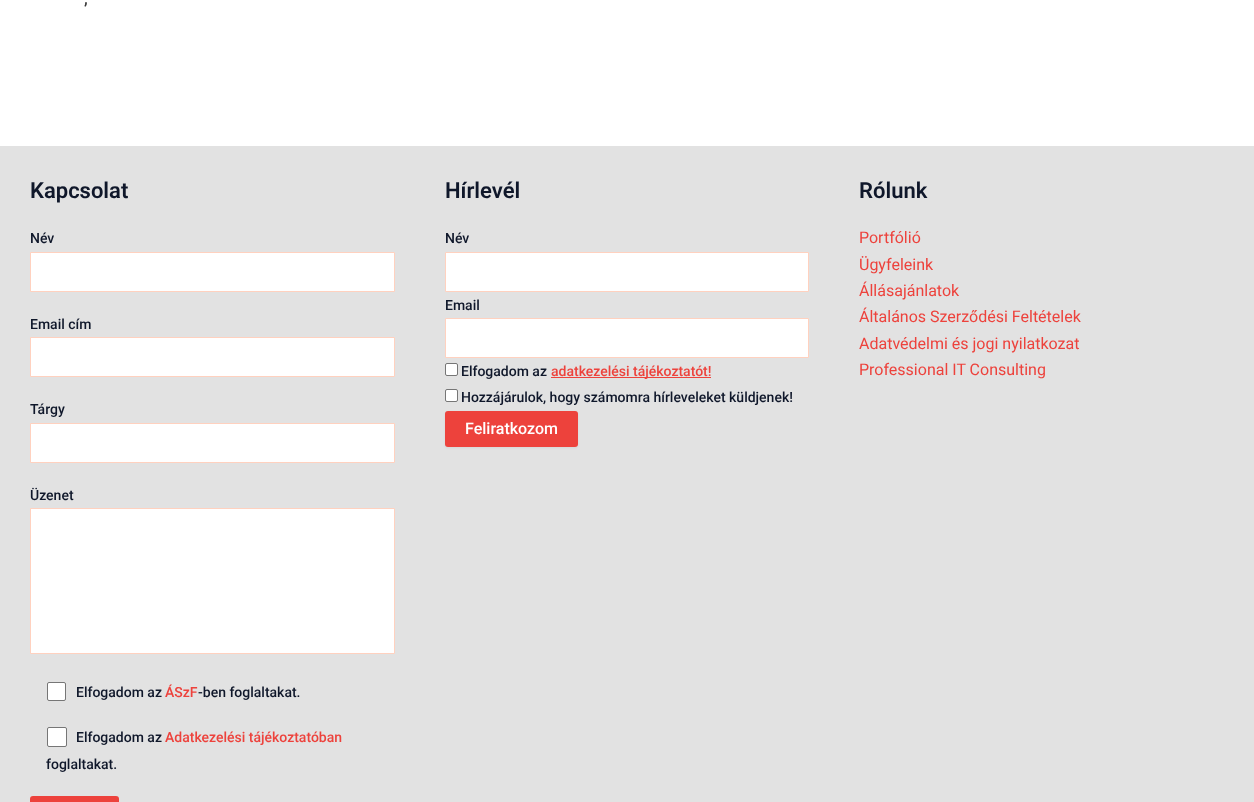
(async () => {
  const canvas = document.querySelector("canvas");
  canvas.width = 1254;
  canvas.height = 802;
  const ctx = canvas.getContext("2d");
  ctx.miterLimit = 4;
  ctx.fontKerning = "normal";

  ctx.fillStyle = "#ffffff";
  ctx.fillRect(0, 0, 1254, 802);
  ctx.fillStyle = "#e2e2e2";
  ctx.fillRect(0, 146, 1254, 656);
  ctx.fillStyle = "#ffffff";
  ctx.beginPath();
  ctx.rect(30.5, 252.5, 364, 39);
  ctx.fill();
  ctx.strokeStyle = "#ffd1bf";
  ctx.stroke();
  ctx.beginPath();
  ctx.rect(30.5, 337.5, 364, 39);
  ctx.fill();
  ctx.stroke();
  ctx.beginPath();
  ctx.rect(30.5, 423.5, 364, 39);
  ctx.fill();
  ctx.stroke();
  ctx.beginPath();
  ctx.rect(30.5, 508.5, 364, 145);
  ctx.fill();
  ctx.stroke();
  ctx.beginPath();
  ctx.roundRect(47.5, 682.5, 18, 18, 1.5);
  ctx.fill();
  ctx.strokeStyle = "#767676";
  ctx.stroke();
  ctx.beginPath();
  ctx.roundRect(47.5, 727.5, 19, 19, 1.5);
  ctx.fill();
  ctx.stroke();
  ctx.fillStyle = "#ed423c";
  ctx.beginPath();
  ctx.roundRect(30, 796, 89, 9, 3);
  ctx.fill();
  ctx.fillStyle = "#ffffff";
  ctx.beginPath();
  ctx.rect(445.5, 252.5, 363, 39);
  ctx.fill();
  ctx.strokeStyle = "#ffd1bf";
  ctx.stroke();
  ctx.beginPath();
  ctx.rect(445.5, 318.5, 363, 39);
  ctx.fill();
  ctx.stroke();
  ctx.beginPath();
  ctx.roundRect(445.5, 363.5, 12, 12, 1.5);
  ctx.fill();
  ctx.strokeStyle = "#767676";
  ctx.stroke();
  ctx.fillStyle = "#ed423c";
  ctx.fillRect(551, 377, 160, 1);
  ctx.fillStyle = "#ffffff";
  ctx.beginPath();
  ctx.roundRect(445.5, 389.5, 12, 12, 1.5);
  ctx.fill();
  ctx.stroke();
  ctx.fillStyle = "rgba(0, 0, 0, 0.05)";
  ctx.filter = "blur(1px)";
  ctx.beginPath();
  ctx.roundRect(445, 412, 133, 36, 3);
  ctx.fill();
  ctx.filter = "none";
  ctx.fillStyle = "#ed423c";
  ctx.beginPath();
  ctx.roundRect(445, 411, 133, 36, 3);
  ctx.fill();
  ctx.font = "600 16px Roboto";
  ctx.fillStyle = "#3a3a3a";
  ctx.fillText(",", 84, 4);
  ctx.font = "600 22px Roboto";
  ctx.fillStyle = "#0f172a";
  ctx.fillText("Kapcsolat", 30, 198);
  ctx.font = "500 14px Roboto";
  for (const [text, x, y] of [
    ["Név", 30, 243],
    ["Email cím", 30, 329],
    ["Tárgy", 30, 414],
    ["Üzenet", 30, 500],
    ["Elfogadom az", 76, 697],
  ]) {
    ctx.fillText(text, x, y);
  }
  ctx.fillStyle = "#ed423c";
  ctx.fillText("ÁSzF", 165, 697);
  ctx.fillStyle = "#0f172a";
  ctx.fillText("-ben foglaltakat.", 198, 697);
  ctx.fillText("Elfogadom az", 76, 742);
  ctx.fillStyle = "#ed423c";
  ctx.fillText("Adatkezelési tájékoztatóban", 165, 742);
  ctx.fillStyle = "#0f172a";
  ctx.fillText("foglaltakat.", 46, 769);
  ctx.font = "600 22px Roboto";
  ctx.fillText("Hírlevél", 445, 198);
  ctx.font = "500 14px Roboto";
  for (const [text, x, y] of [
    ["Név", 445, 243],
    ["Email", 445, 310],
    ["Elfogadom az", 461, 376],
  ]) {
    ctx.fillText(text, x, y);
  }
  ctx.fillStyle = "#ed423c";
  ctx.fillText("adatkezelési tájékoztatót!", 551, 376);
  ctx.fillStyle = "#0f172a";
  ctx.fillText("Hozzájárulok, hogy számomra hírleveleket küldjenek!", 461, 402);
  ctx.font = "500 16px Roboto";
  ctx.fillStyle = "#ffffff";
  ctx.fillText("Feliratkozom", 465, 434);
  ctx.font = "600 22px Roboto";
  ctx.fillStyle = "#0f172a";
  ctx.fillText("Rólunk", 859, 198);
  ctx.font = "16px Roboto";
  ctx.fillStyle = "#ed423c";
  for (const [text, x, y] of [
    ["Portfólió", 859, 243],
    ["Ügyfeleink", 859, 270],
    ["Állásajánlatok", 859, 296],
    ["Általános Szerződési Feltételek", 859, 322],
    ["Adatvédelmi és jogi nyilatkozat", 859, 349],
    ["Professional IT Consulting", 859, 375],
  ]) {
    ctx.fillText(text, x, y);
  }
})();
